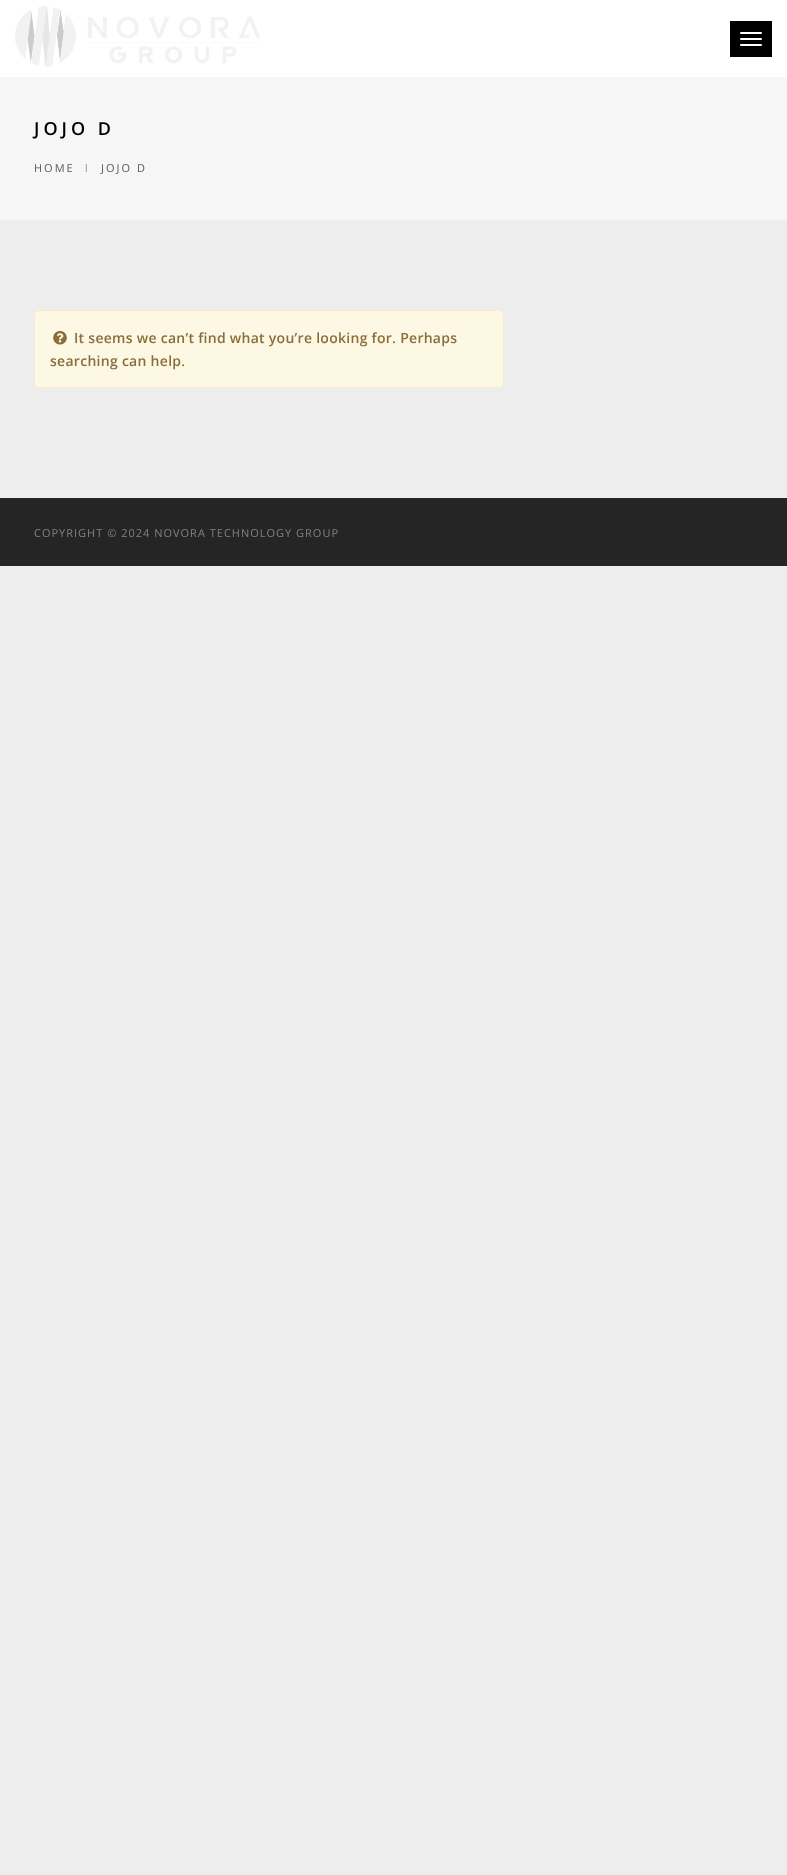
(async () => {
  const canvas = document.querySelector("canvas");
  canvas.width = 787;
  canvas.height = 1875;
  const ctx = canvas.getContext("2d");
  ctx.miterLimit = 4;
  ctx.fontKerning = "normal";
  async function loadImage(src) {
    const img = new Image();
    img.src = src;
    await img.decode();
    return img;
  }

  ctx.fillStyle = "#ededed";
  ctx.fillRect(0, 0, 787, 1875);
  ctx.fillStyle = "#ffffff";
  ctx.fillRect(0, 0, 787, 77);
  ctx.drawImage(await loadImage("img/1.png"), 15, 6, 245, 61);
  ctx.fillStyle = "#000000";
  ctx.fillRect(730, 21, 42, 36);
  ctx.fillStyle = "#ffffff";
  ctx.beginPath();
  ctx.roundRect(740, 32, 22, 2, 1);
  ctx.fill();
  ctx.beginPath();
  ctx.roundRect(740, 38, 22, 2, 1);
  ctx.fill();
  ctx.beginPath();
  ctx.roundRect(740, 44, 22, 2, 1);
  ctx.fill();
  ctx.fillStyle = "#f6f6f6";
  ctx.fillRect(0, 77, 787, 143);
  ctx.fillStyle = "#fcf8e3";
  ctx.beginPath();
  ctx.roundRect(34.5, 310.5, 469, 77, 4.5);
  ctx.fill();
  ctx.strokeStyle = "#faebcc";
  ctx.stroke();
  ctx.drawImage(await loadImage("img/2.png"), 53, 331, 14, 14);
  ctx.fillStyle = "#252525";
  ctx.fillRect(0, 498, 787, 68);
  ctx.letterSpacing = "4px";
  ctx.font = "600 18px Open Sans";
  ctx.fillStyle = "#000000";
  ctx.fillText("JOJO D", 34, 135);
  ctx.letterSpacing = "2px";
  ctx.font = "11px Open Sans";
  ctx.fillStyle = "#575757";
  ctx.fillText("HOME", 34, 172);
  ctx.font = "8px Open Sans";
  ctx.fillText("|", 84, 170);
  ctx.font = "11px Open Sans";
  ctx.fillText("JOJO D", 101, 172);
  ctx.letterSpacing = "0.28px";
  ctx.font = "600 14px Open Sans";
  ctx.fillStyle = "#8a6d3b";
  ctx.fillText("It seems we can’t find what you’re looking for. Perhaps", 74, 343);
  ctx.fillText("searching can help.", 50, 366);
  ctx.letterSpacing = "1px";
  ctx.font = "11px Open Sans";
  ctx.fillStyle = "#828282";
  ctx.fillText("COPYRIGHT © 2024 NOVORA TECHNOLOGY GROUP", 34, 537);
})();
